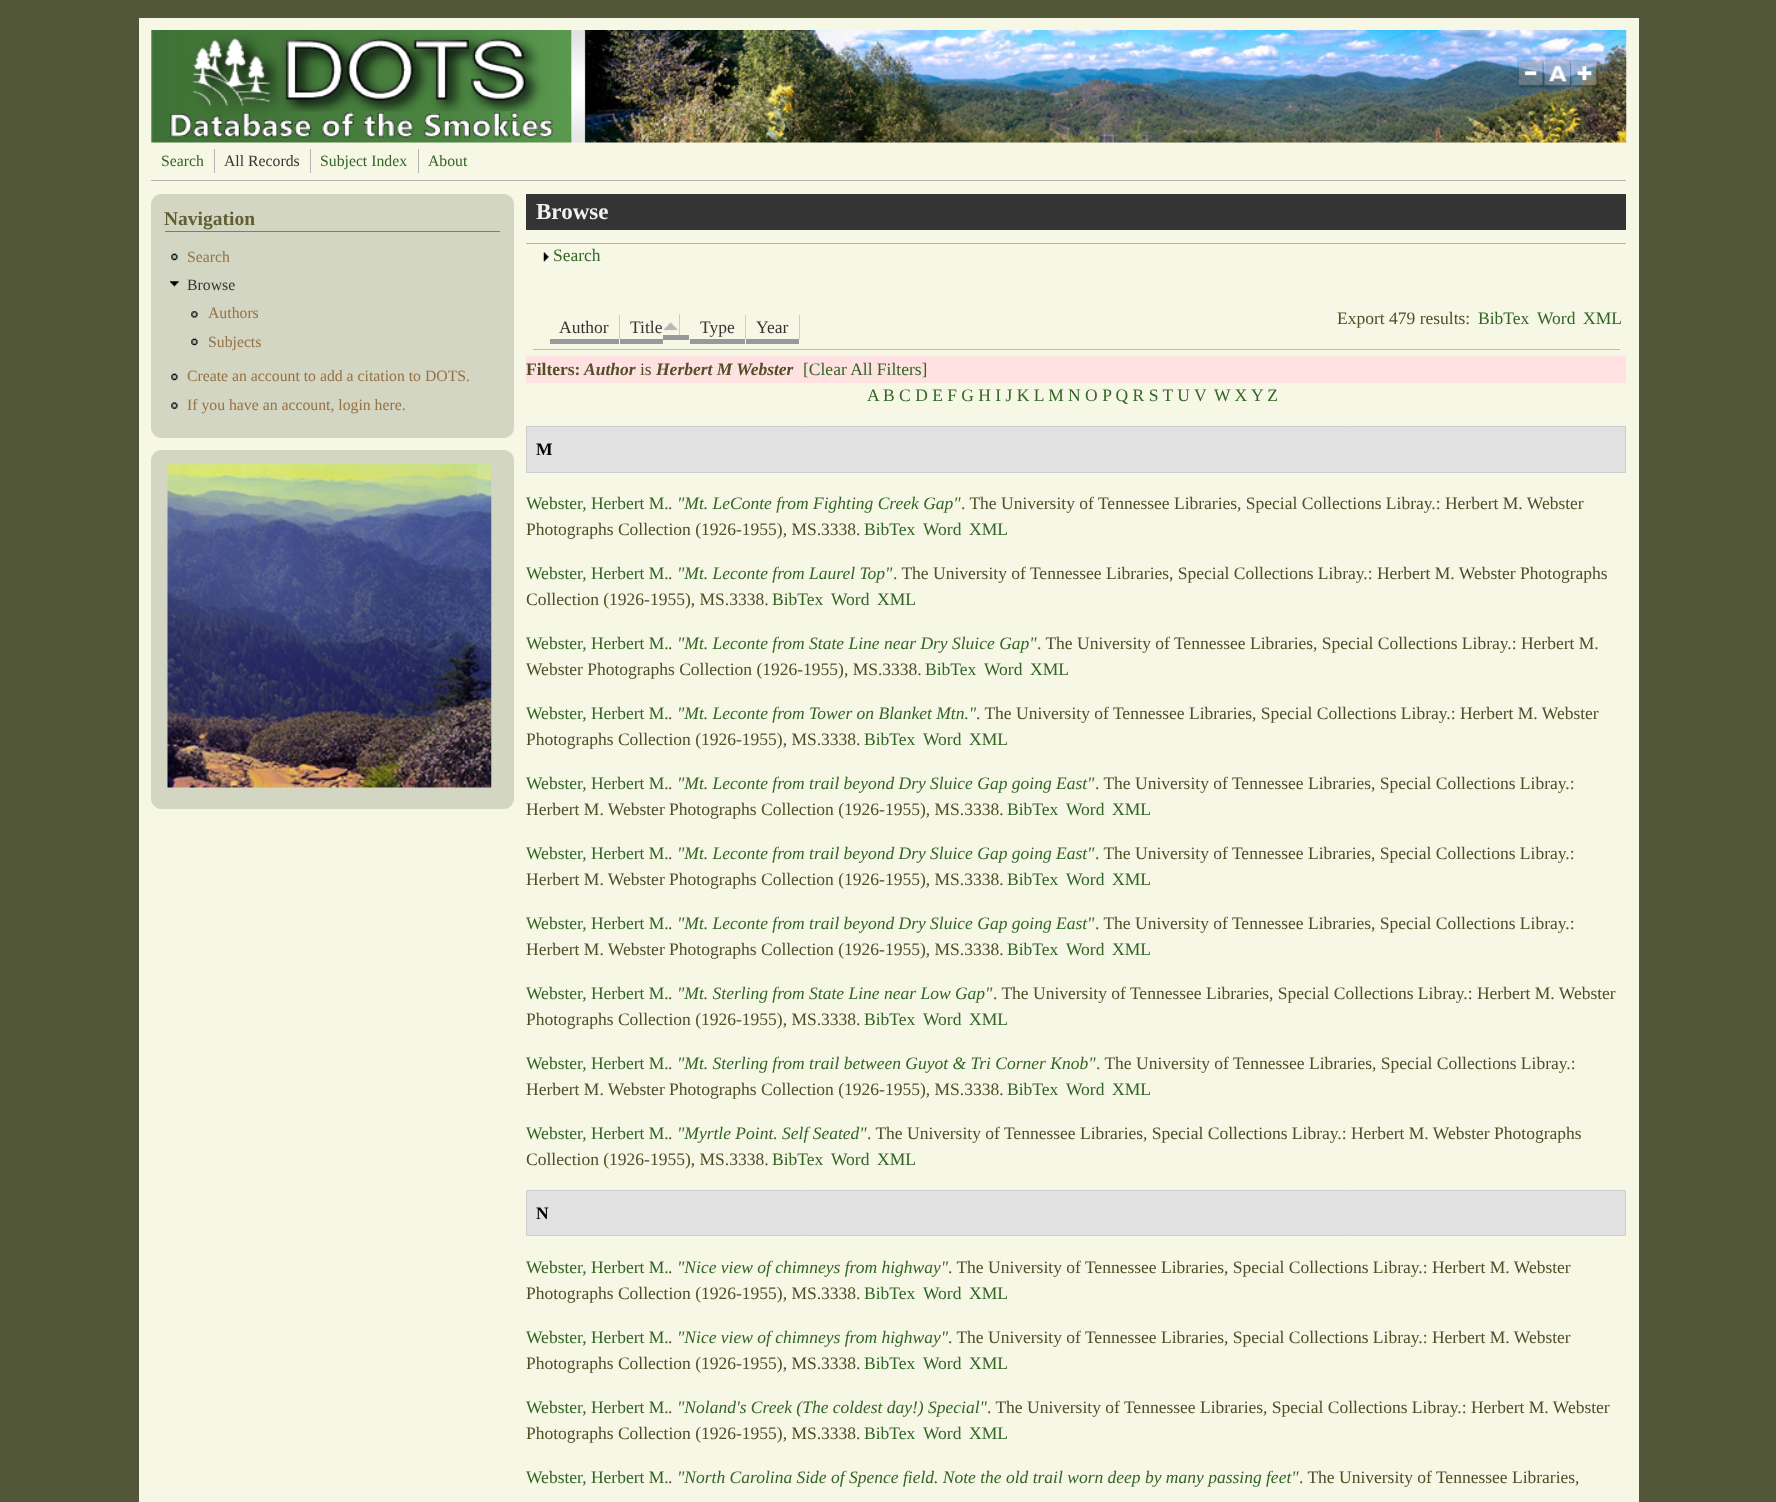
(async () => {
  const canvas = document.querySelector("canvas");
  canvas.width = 1776;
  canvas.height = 1502;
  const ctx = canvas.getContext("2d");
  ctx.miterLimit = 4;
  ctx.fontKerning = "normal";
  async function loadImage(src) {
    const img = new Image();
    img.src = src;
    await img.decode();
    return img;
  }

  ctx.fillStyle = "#535739";
  ctx.fillRect(0, 0, 1776, 1502);
  ctx.fillStyle = "#f6f7e5";
  ctx.fillRect(139, 18, 1500, 1484);
  ctx.drawImage(await loadImage("img/1.png"), 151, 30, 1476, 113);
  ctx.drawImage(await loadImage("img/2.png"), 170, 35, 383, 103);
  ctx.drawImage(await loadImage("img/3.png"), 1517, 59, 27, 30);
  ctx.drawImage(await loadImage("img/4.png"), 1545, 59, 27, 30);
  ctx.drawImage(await loadImage("img/5.png"), 1572, 59, 29, 30);
  for (const [x, y, w, h, color] of [
    [151, 180, 1475, 1, "#b4b4b4"],
    [214, 149, 1, 24, "#b4b4b4"],
    [310, 149, 1, 24, "#b4b4b4"],
    [418, 149, 1, 24, "#b4b4b4"],
  ]) {
    ctx.fillStyle = color;
    ctx.fillRect(x, y, w, h);
  }
  ctx.fillStyle = "#d3d6c3";
  ctx.beginPath();
  ctx.roundRect(151.5, 194.5, 362, 243, 9.5);
  ctx.fill();
  ctx.strokeStyle = "#d3d6c3";
  ctx.stroke();
  ctx.fillStyle = "#817b68";
  ctx.fillRect(165, 231, 335, 1);
  ctx.drawImage(await loadImage("img/6.png"), 171, 253, 7, 8);
  ctx.drawImage(await loadImage("img/7.png"), 170, 281, 9, 6);
  ctx.drawImage(await loadImage("img/8.png"), 191, 311, 7, 7);
  ctx.drawImage(await loadImage("img/6.png"), 191, 338, 7, 8);
  ctx.drawImage(await loadImage("img/6.png"), 171, 373, 7, 8);
  ctx.drawImage(await loadImage("img/9.png"), 171, 402, 7, 7);
  ctx.fillStyle = "#d3d6c3";
  ctx.beginPath();
  ctx.roundRect(151.5, 450.5, 362, 358, 9.5);
  ctx.fill();
  ctx.stroke();
  ctx.drawImage(await loadImage("img/10.png"), 167, 463, 325, 325);
  ctx.fillStyle = "#343434";
  ctx.fillRect(526, 194, 1100, 36);
  ctx.fillStyle = "#b4b4b4";
  ctx.fillRect(526, 243, 1100, 1);
  ctx.drawImage(await loadImage("img/11.png"), 543, 252, 6, 10);
  for (const [x, y, w, h, color] of [
    [533, 349, 1087, 1, "#bbbbbb"],
    [619, 315, 1, 24, "#cccccc"],
    [550, 339, 69, 5, "#999999"],
    [679, 314, 1, 21, "#cccccc"],
    [620, 339, 43, 5, "#999999"],
    [663, 335, 26, 5, "#999999"],
  ]) {
    ctx.fillStyle = color;
    ctx.fillRect(x, y, w, h);
  }
  ctx.drawImage(await loadImage("img/12.png"), 663, 322, 15, 9);
  for (const [x, y, w, h, color] of [
    [745, 315, 1, 24, "#cccccc"],
    [690, 339, 55, 5, "#999999"],
    [799, 315, 1, 24, "#cccccc"],
    [746, 339, 53, 5, "#999999"],
    [526, 356, 1100, 27, "#ffe1e1"],
  ]) {
    ctx.fillStyle = color;
    ctx.fillRect(x, y, w, h);
  }
  ctx.fillStyle = "#e1e1e1";
  ctx.beginPath();
  ctx.rect(526.5, 426.5, 1099, 46);
  ctx.fill();
  ctx.strokeStyle = "#cccccc";
  ctx.stroke();
  ctx.beginPath();
  ctx.rect(526.5, 1190.5, 1099, 45);
  ctx.fill();
  ctx.stroke();
  ctx.font = "15.75px Liberation Serif";
  ctx.fillStyle = "#336525";
  ctx.fillText("Search", 161, 166);
  ctx.fillStyle = "#363533";
  ctx.fillText("All Records", 224, 166);
  ctx.fillStyle = "#336525";
  ctx.fillText("Subject Index", 320, 166);
  ctx.fillText("About", 428, 166);
  ctx.font = "bold 19.5px Liberation Serif";
  ctx.fillStyle = "#606034";
  ctx.fillText("Navigation", 164, 225);
  ctx.font = "15.75px Liberation Serif";
  ctx.fillStyle = "#967144";
  ctx.fillText("Search", 187, 262);
  ctx.fillStyle = "#363533";
  ctx.fillText("Browse", 187, 290);
  ctx.fillStyle = "#967144";
  for (const [text, x, y] of [
    ["Authors", 208, 318],
    ["Subjects", 208, 347],
    ["Create an account to add a citation to DOTS.", 187, 381],
    ["If you have an account, login here.", 187, 410],
  ]) {
    ctx.fillText(text, x, y);
  }
  ctx.font = "bold 23px Liberation Serif";
  ctx.fillStyle = "#f1f1f1";
  ctx.fillText("Browse", 536, 219);
  ctx.font = "17.5px Liberation Serif";
  ctx.fillStyle = "#336525";
  ctx.fillText("Search", 553, 261);
  ctx.fillStyle = "#363533";
  for (const [text, x, y] of [
    ["Author", 559, 333],
    ["Title", 630, 333],
    ["Type", 700, 333],
    ["Year", 756, 333],
  ]) {
    ctx.fillText(text, x, y);
  }
  ctx.fillStyle = "#524e27";
  ctx.fillText("Export 479 results:", 1337, 324);
  ctx.fillStyle = "#336525";
  for (const [text, x, y] of [
    ["BibTex", 1478, 324],
    ["Word", 1537, 324],
    ["XML", 1583, 324],
  ]) {
    ctx.fillText(text, x, y);
  }
  ctx.font = "bold 17.5px Liberation Serif";
  ctx.fillStyle = "#524e27";
  ctx.fillText("Filters:", 526, 375);
  ctx.font = "italic bold 17.5px Liberation Serif";
  ctx.fillText("Author", 584, 375);
  ctx.font = "17.5px Liberation Serif";
  ctx.fillText("is", 640, 375);
  ctx.font = "italic bold 17.5px Liberation Serif";
  ctx.fillText("Herbert M Webster", 656, 375);
  ctx.font = "17.5px Liberation Serif";
  ctx.fillStyle = "#336525";
  ctx.fillText("[Clear All Filters]", 803, 375);
  ctx.fillText("A B C D E F G H I J K L M N O P Q R S T U V", 867, 401);
  ctx.fillText("W X Y Z", 1214, 401);
  ctx.font = "bold 17.5px Liberation Serif";
  ctx.fillStyle = "#000000";
  ctx.fillText("M", 536, 455);
  ctx.font = "17.5px Liberation Serif";
  ctx.fillStyle = "#336525";
  ctx.fillText("Webster, Herbert M.", 526, 509);
  ctx.fillStyle = "#524e27";
  ctx.fillText(".", 668, 509);
  ctx.font = "italic 17.5px Liberation Serif";
  ctx.fillStyle = "#336525";
  ctx.fillText("\"Mt. LeConte from Fighting Creek Gap\"", 677, 509);
  ctx.font = "17.5px Liberation Serif";
  ctx.fillStyle = "#524e27";
  ctx.fillText(". The University of Tennessee Libraries, Special Collections Libray.: Herbert M. Webster", 961, 509);
  ctx.fillText("Photographs Collection (1926-1955), MS.3338.", 526, 535);
  ctx.fillStyle = "#336525";
  for (const [text, x, y] of [
    ["BibTex", 864, 535],
    ["Word", 923, 535],
    ["XML", 969, 535],
    ["Webster, Herbert M.", 526, 579],
  ]) {
    ctx.fillText(text, x, y);
  }
  ctx.fillStyle = "#524e27";
  ctx.fillText(".", 668, 579);
  ctx.font = "italic 17.5px Liberation Serif";
  ctx.fillStyle = "#336525";
  ctx.fillText("\"Mt. Leconte from Laurel Top\"", 677, 579);
  ctx.font = "17.5px Liberation Serif";
  ctx.fillStyle = "#524e27";
  ctx.fillText(". The University of Tennessee Libraries, Special Collections Libray.: Herbert M. Webster Photographs", 893, 579);
  ctx.fillText("Collection (1926-1955), MS.3338.", 526, 605);
  ctx.fillStyle = "#336525";
  for (const [text, x, y] of [
    ["BibTex", 772, 605],
    ["Word", 831, 605],
    ["XML", 877, 605],
    ["Webster, Herbert M.", 526, 649],
  ]) {
    ctx.fillText(text, x, y);
  }
  ctx.fillStyle = "#524e27";
  ctx.fillText(".", 668, 649);
  ctx.font = "italic 17.5px Liberation Serif";
  ctx.fillStyle = "#336525";
  ctx.fillText("\"Mt. Leconte from State Line near Dry Sluice Gap\"", 677, 649);
  ctx.font = "17.5px Liberation Serif";
  ctx.fillStyle = "#524e27";
  ctx.fillText(". The University of Tennessee Libraries, Special Collections Libray.: Herbert M.", 1037, 649);
  ctx.fillText("Webster Photographs Collection (1926-1955), MS.3338.", 526, 675);
  ctx.fillStyle = "#336525";
  for (const [text, x, y] of [
    ["BibTex", 925, 675],
    ["Word", 984, 675],
    ["XML", 1030, 675],
    ["Webster, Herbert M.", 526, 719],
  ]) {
    ctx.fillText(text, x, y);
  }
  ctx.fillStyle = "#524e27";
  ctx.fillText(".", 668, 719);
  ctx.font = "italic 17.5px Liberation Serif";
  ctx.fillStyle = "#336525";
  ctx.fillText("\"Mt. Leconte from Tower on Blanket Mtn.\"", 677, 719);
  ctx.font = "17.5px Liberation Serif";
  ctx.fillStyle = "#524e27";
  ctx.fillText(". The University of Tennessee Libraries, Special Collections Libray.: Herbert M. Webster", 976, 719);
  ctx.fillText("Photographs Collection (1926-1955), MS.3338.", 526, 745);
  ctx.fillStyle = "#336525";
  for (const [text, x, y] of [
    ["BibTex", 864, 745],
    ["Word", 923, 745],
    ["XML", 969, 745],
    ["Webster, Herbert M.", 526, 789],
  ]) {
    ctx.fillText(text, x, y);
  }
  ctx.fillStyle = "#524e27";
  ctx.fillText(".", 668, 789);
  ctx.font = "italic 17.5px Liberation Serif";
  ctx.fillStyle = "#336525";
  ctx.fillText("\"Mt. Leconte from trail beyond Dry Sluice Gap going East\"", 677, 789);
  ctx.font = "17.5px Liberation Serif";
  ctx.fillStyle = "#524e27";
  ctx.fillText(". The University of Tennessee Libraries, Special Collections Libray.:", 1095, 789);
  ctx.fillText("Herbert M. Webster Photographs Collection (1926-1955), MS.3338.", 526, 815);
  ctx.fillStyle = "#336525";
  for (const [text, x, y] of [
    ["BibTex", 1007, 815],
    ["Word", 1066, 815],
    ["XML", 1112, 815],
    ["Webster, Herbert M.", 526, 859],
  ]) {
    ctx.fillText(text, x, y);
  }
  ctx.fillStyle = "#524e27";
  ctx.fillText(".", 668, 859);
  ctx.font = "italic 17.5px Liberation Serif";
  ctx.fillStyle = "#336525";
  ctx.fillText("\"Mt. Leconte from trail beyond Dry Sluice Gap going East\"", 677, 859);
  ctx.font = "17.5px Liberation Serif";
  ctx.fillStyle = "#524e27";
  ctx.fillText(". The University of Tennessee Libraries, Special Collections Libray.:", 1095, 859);
  ctx.fillText("Herbert M. Webster Photographs Collection (1926-1955), MS.3338.", 526, 885);
  ctx.fillStyle = "#336525";
  for (const [text, x, y] of [
    ["BibTex", 1007, 885],
    ["Word", 1066, 885],
    ["XML", 1112, 885],
    ["Webster, Herbert M.", 526, 929],
  ]) {
    ctx.fillText(text, x, y);
  }
  ctx.fillStyle = "#524e27";
  ctx.fillText(".", 668, 929);
  ctx.font = "italic 17.5px Liberation Serif";
  ctx.fillStyle = "#336525";
  ctx.fillText("\"Mt. Leconte from trail beyond Dry Sluice Gap going East\"", 677, 929);
  ctx.font = "17.5px Liberation Serif";
  ctx.fillStyle = "#524e27";
  ctx.fillText(". The University of Tennessee Libraries, Special Collections Libray.:", 1095, 929);
  ctx.fillText("Herbert M. Webster Photographs Collection (1926-1955), MS.3338.", 526, 955);
  ctx.fillStyle = "#336525";
  for (const [text, x, y] of [
    ["BibTex", 1007, 955],
    ["Word", 1066, 955],
    ["XML", 1112, 955],
    ["Webster, Herbert M.", 526, 999],
  ]) {
    ctx.fillText(text, x, y);
  }
  ctx.fillStyle = "#524e27";
  ctx.fillText(".", 668, 999);
  ctx.font = "italic 17.5px Liberation Serif";
  ctx.fillStyle = "#336525";
  ctx.fillText("\"Mt. Sterling from State Line near Low Gap\"", 677, 999);
  ctx.font = "17.5px Liberation Serif";
  ctx.fillStyle = "#524e27";
  ctx.fillText(". The University of Tennessee Libraries, Special Collections Libray.: Herbert M. Webster", 993, 999);
  ctx.fillText("Photographs Collection (1926-1955), MS.3338.", 526, 1025);
  ctx.fillStyle = "#336525";
  for (const [text, x, y] of [
    ["BibTex", 864, 1025],
    ["Word", 923, 1025],
    ["XML", 969, 1025],
    ["Webster, Herbert M.", 526, 1069],
  ]) {
    ctx.fillText(text, x, y);
  }
  ctx.fillStyle = "#524e27";
  ctx.fillText(".", 668, 1069);
  ctx.font = "italic 17.5px Liberation Serif";
  ctx.fillStyle = "#336525";
  ctx.fillText("\"Mt. Sterling from trail between Guyot & Tri Corner Knob\"", 677, 1069);
  ctx.font = "17.5px Liberation Serif";
  ctx.fillStyle = "#524e27";
  ctx.fillText(". The University of Tennessee Libraries, Special Collections Libray.:", 1096, 1069);
  ctx.fillText("Herbert M. Webster Photographs Collection (1926-1955), MS.3338.", 526, 1095);
  ctx.fillStyle = "#336525";
  for (const [text, x, y] of [
    ["BibTex", 1007, 1095],
    ["Word", 1066, 1095],
    ["XML", 1112, 1095],
    ["Webster, Herbert M.", 526, 1139],
  ]) {
    ctx.fillText(text, x, y);
  }
  ctx.fillStyle = "#524e27";
  ctx.fillText(".", 668, 1139);
  ctx.font = "italic 17.5px Liberation Serif";
  ctx.fillStyle = "#336525";
  ctx.fillText("\"Myrtle Point. Self Seated\"", 677, 1139);
  ctx.font = "17.5px Liberation Serif";
  ctx.fillStyle = "#524e27";
  ctx.fillText(". The University of Tennessee Libraries, Special Collections Libray.: Herbert M. Webster Photographs", 867, 1139);
  ctx.fillText("Collection (1926-1955), MS.3338.", 526, 1165);
  ctx.fillStyle = "#336525";
  for (const [text, x, y] of [
    ["BibTex", 772, 1165],
    ["Word", 831, 1165],
    ["XML", 877, 1165],
  ]) {
    ctx.fillText(text, x, y);
  }
  ctx.font = "bold 17.5px Liberation Serif";
  ctx.fillStyle = "#000000";
  ctx.fillText("N", 536, 1219);
  ctx.font = "17.5px Liberation Serif";
  ctx.fillStyle = "#336525";
  ctx.fillText("Webster, Herbert M.", 526, 1273);
  ctx.fillStyle = "#524e27";
  ctx.fillText(".", 668, 1273);
  ctx.font = "italic 17.5px Liberation Serif";
  ctx.fillStyle = "#336525";
  ctx.fillText("\"Nice view of chimneys from highway\"", 677, 1273);
  ctx.font = "17.5px Liberation Serif";
  ctx.fillStyle = "#524e27";
  ctx.fillText(". The University of Tennessee Libraries, Special Collections Libray.: Herbert M. Webster", 948, 1273);
  ctx.fillText("Photographs Collection (1926-1955), MS.3338.", 526, 1299);
  ctx.fillStyle = "#336525";
  for (const [text, x, y] of [
    ["BibTex", 864, 1299],
    ["Word", 923, 1299],
    ["XML", 969, 1299],
    ["Webster, Herbert M.", 526, 1343],
  ]) {
    ctx.fillText(text, x, y);
  }
  ctx.fillStyle = "#524e27";
  ctx.fillText(".", 668, 1343);
  ctx.font = "italic 17.5px Liberation Serif";
  ctx.fillStyle = "#336525";
  ctx.fillText("\"Nice view of chimneys from highway\"", 677, 1343);
  ctx.font = "17.5px Liberation Serif";
  ctx.fillStyle = "#524e27";
  ctx.fillText(". The University of Tennessee Libraries, Special Collections Libray.: Herbert M. Webster", 948, 1343);
  ctx.fillText("Photographs Collection (1926-1955), MS.3338.", 526, 1369);
  ctx.fillStyle = "#336525";
  for (const [text, x, y] of [
    ["BibTex", 864, 1369],
    ["Word", 923, 1369],
    ["XML", 969, 1369],
    ["Webster, Herbert M.", 526, 1413],
  ]) {
    ctx.fillText(text, x, y);
  }
  ctx.fillStyle = "#524e27";
  ctx.fillText(".", 668, 1413);
  ctx.font = "italic 17.5px Liberation Serif";
  ctx.fillStyle = "#336525";
  ctx.fillText("\"Noland's Creek (The coldest day!) Special\"", 677, 1413);
  ctx.font = "17.5px Liberation Serif";
  ctx.fillStyle = "#524e27";
  ctx.fillText(". The University of Tennessee Libraries, Special Collections Libray.: Herbert M. Webster", 987, 1413);
  ctx.fillText("Photographs Collection (1926-1955), MS.3338.", 526, 1439);
  ctx.fillStyle = "#336525";
  for (const [text, x, y] of [
    ["BibTex", 864, 1439],
    ["Word", 923, 1439],
    ["XML", 969, 1439],
    ["Webster, Herbert M.", 526, 1483],
  ]) {
    ctx.fillText(text, x, y);
  }
  ctx.fillStyle = "#524e27";
  ctx.fillText(".", 668, 1483);
  ctx.font = "italic 17.5px Liberation Serif";
  ctx.fillStyle = "#336525";
  ctx.fillText("\"North Carolina Side of Spence field. Note the old trail worn deep by many passing feet\"", 677, 1483);
  ctx.font = "17.5px Liberation Serif";
  ctx.fillStyle = "#524e27";
  ctx.fillText(". The University of Tennessee Libraries,", 1299, 1483);
})();
